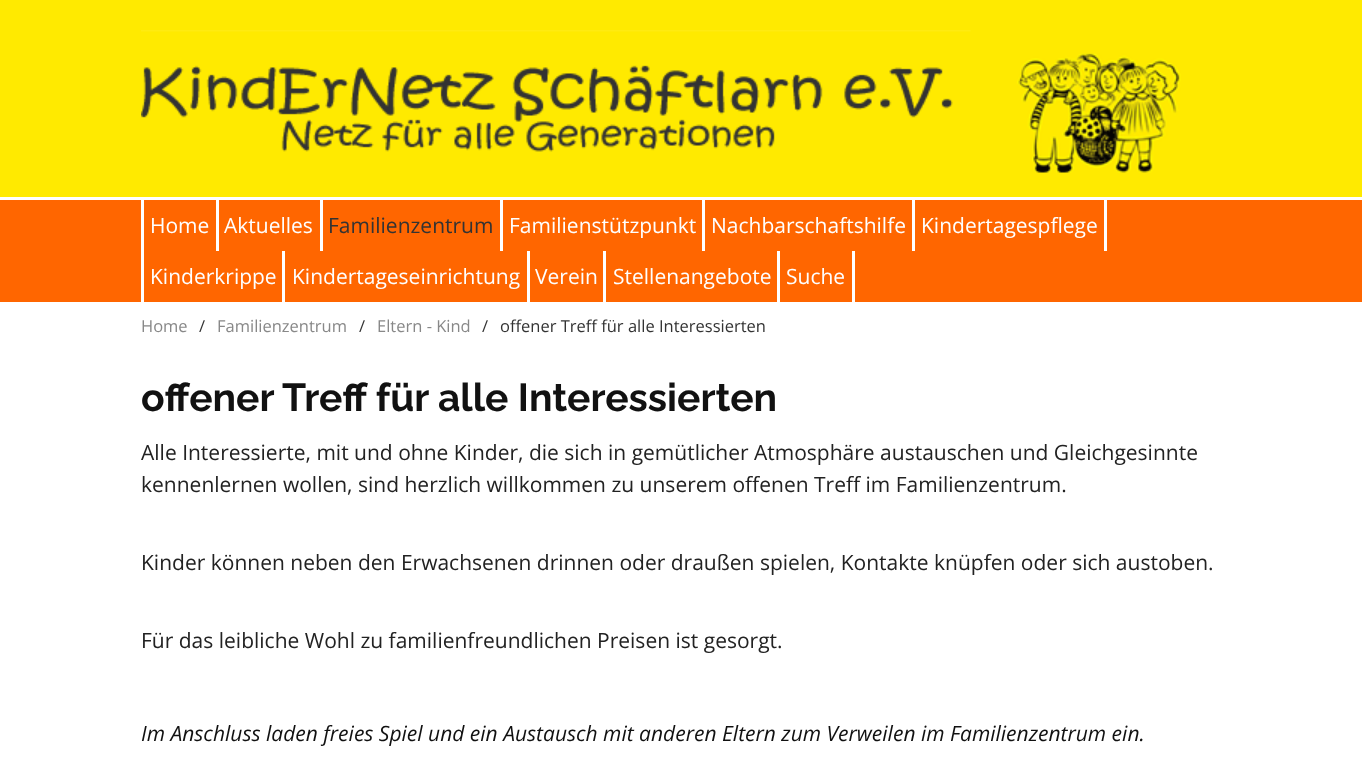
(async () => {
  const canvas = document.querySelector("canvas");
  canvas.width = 1362;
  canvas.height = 768;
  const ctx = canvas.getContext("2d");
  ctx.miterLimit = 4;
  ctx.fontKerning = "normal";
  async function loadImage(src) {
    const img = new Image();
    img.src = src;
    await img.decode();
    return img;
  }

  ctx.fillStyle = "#ffffff";
  ctx.fillRect(0, 0, 1362, 768);
  ctx.fillStyle = "#ffea00";
  ctx.fillRect(0, 0, 1362, 197);
  ctx.drawImage(await loadImage("img/1.png"), 141, 30, 830, 122);
  ctx.drawImage(await loadImage("img/2.png"), 1017, 53, 164, 120);
  for (const [x, y, w, h, color] of [
    [0, 200, 1362, 102, "#ff6600"],
    [141, 200, 3, 102, "#ffffff"],
    [216, 200, 3, 51, "#ffffff"],
    [320, 200, 3, 51, "#ffffff"],
    [500, 200, 3, 51, "#ffffff"],
    [702, 200, 3, 51, "#ffffff"],
    [912, 200, 3, 51, "#ffffff"],
    [1104, 200, 3, 51, "#ffffff"],
    [282, 251, 3, 51, "#ffffff"],
    [527, 251, 3, 51, "#ffffff"],
    [603, 251, 3, 51, "#ffffff"],
    [777, 251, 3, 51, "#ffffff"],
    [852, 251, 3, 51, "#ffffff"],
  ]) {
    ctx.fillStyle = color;
    ctx.fillRect(x, y, w, h);
  }
  ctx.font = "21px Open Sans";
  ctx.fillText("Home", 150, 233);
  ctx.fillText("Aktuelles", 224, 233);
  ctx.fillStyle = "#333333";
  ctx.fillText("Familienzentrum", 328, 233);
  ctx.fillStyle = "#ffffff";
  for (const [text, x, y] of [
    ["Familienstützpunkt", 509, 233],
    ["Nachbarschaftshilfe", 711, 233],
    ["Kindertagespflege", 921, 233],
    ["Kinderkrippe", 150, 284],
    ["Kindertageseinrichtung", 292, 284],
    ["Verein", 535, 284],
    ["Stellenangebote", 613, 284],
    ["Suche", 786, 284],
  ]) {
    ctx.fillText(text, x, y);
  }
  ctx.font = "16.5px Open Sans";
  ctx.fillStyle = "#888888";
  ctx.fillText("Home", 141, 332);
  ctx.fillStyle = "#333333";
  ctx.fillText("∕", 199, 332);
  ctx.fillStyle = "#888888";
  ctx.fillText("Familienzentrum", 217, 332);
  ctx.fillStyle = "#333333";
  ctx.fillText("∕", 359, 332);
  ctx.fillStyle = "#888888";
  ctx.fillText("Eltern - Kind", 377, 332);
  ctx.fillStyle = "#333333";
  ctx.fillText("∕", 482, 332);
  ctx.fillText("offener Treff für alle Interessierten", 500, 332);
  ctx.font = "bold 39px Raleway";
  ctx.fillStyle = "#111111";
  ctx.fillText("offener Treff für alle Interessierten", 141, 411);
  ctx.font = "21px Open Sans";
  ctx.fillStyle = "#222222";
  for (const [text, x, y] of [
    ["Alle Interessierte, mit und ohne Kinder, die sich in gemütlicher Atmosphäre austauschen und Gleichgesinnte", 141, 460],
    ["kennenlernen wollen, sind herzlich willkommen zu unserem offenen Treff im Familienzentrum.", 141, 492],
    ["Kinder können neben den Erwachsenen drinnen oder draußen spielen, Kontakte knüpfen oder sich austoben.", 141, 570],
    ["Für das leibliche Wohl zu familienfreundlichen Preisen ist gesorgt.", 141, 648],
  ]) {
    ctx.fillText(text, x, y);
  }
  ctx.font = "italic 21px Open Sans";
  ctx.fillStyle = "#111111";
  ctx.fillText("Im Anschluss laden freies Spiel und ein Austausch mit anderen Eltern zum Verweilen im Familienzentrum ein.", 141, 741);
})();
